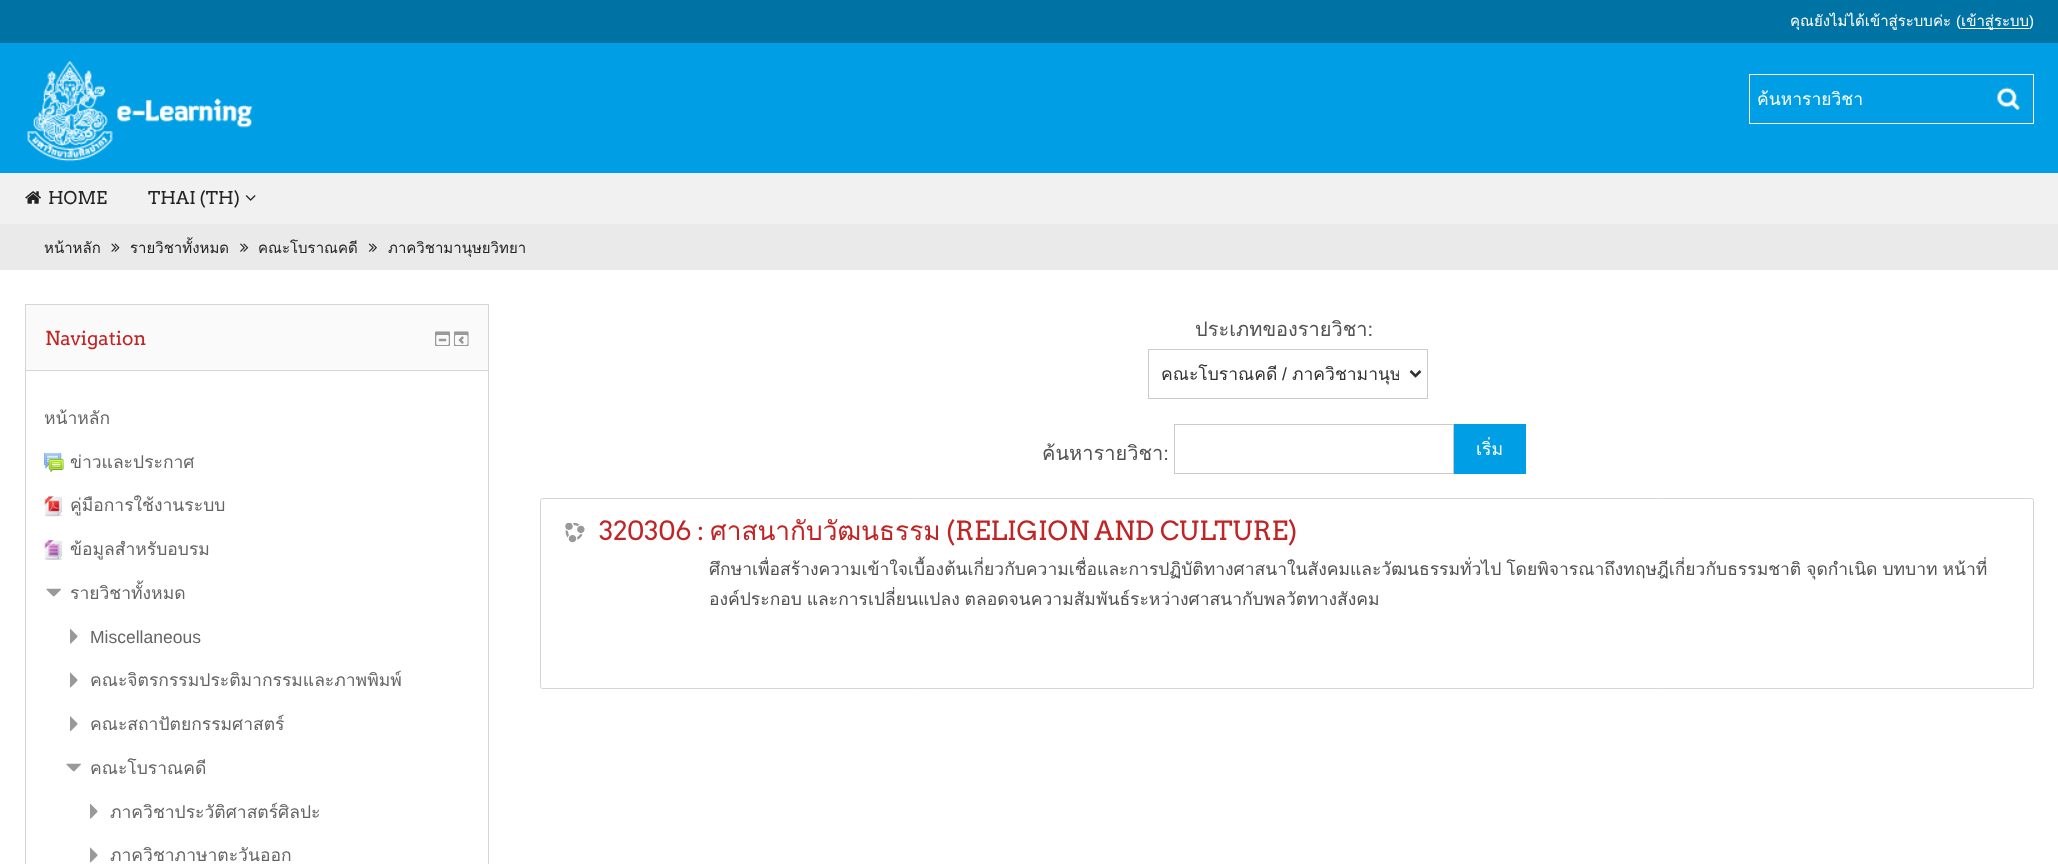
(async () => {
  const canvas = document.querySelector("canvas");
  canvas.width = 2058;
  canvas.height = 864;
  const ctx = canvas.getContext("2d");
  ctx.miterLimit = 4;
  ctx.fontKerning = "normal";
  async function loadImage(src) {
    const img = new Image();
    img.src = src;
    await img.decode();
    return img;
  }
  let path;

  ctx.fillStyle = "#ffffff";
  ctx.fillRect(0, 0, 2058, 864);
  for (const [x, y, w, h, color] of [
    [0, 0, 2058, 43, "#0073a5"],
    [1961, 28, 68, 1, "#ffffff"],
    [0, 43, 2058, 130, "#009fe5"],
  ]) {
    ctx.fillStyle = color;
    ctx.fillRect(x, y, w, h);
  }
  ctx.drawImage(await loadImage("img/1.png"), 27, 61, 226, 101);
  ctx.strokeStyle = "#ffffff";
  ctx.strokeRect(1749.5, 74.5, 284, 49);
  ctx.drawImage(await loadImage("img/2.png"), 1997, 87, 23, 23);
  ctx.fillStyle = "#f1f1f1";
  ctx.fillRect(0, 173, 2058, 51);
  ctx.drawImage(await loadImage("img/3.png"), 25, 191, 16, 13);
  ctx.drawImage(await loadImage("img/4.png"), 245, 195, 11, 6);
  ctx.fillStyle = "#eaeaea";
  ctx.fillRect(0, 224, 2058, 46);
  ctx.drawImage(await loadImage("img/5.png"), 111, 243, 9, 9);
  ctx.drawImage(await loadImage("img/6.png"), 240, 243, 9, 9);
  ctx.drawImage(await loadImage("img/7.png"), 368, 243, 9, 9);
  ctx.strokeStyle = "#d5d5d5";
  ctx.strokeRect(25.5, 304.5, 463, 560);
  ctx.fillStyle = "#fafafa";
  ctx.fillRect(26, 305, 462, 65);
  ctx.fillStyle = "#d5d5d5";
  ctx.fillRect(26, 370, 462, 1);
  ctx.drawImage(await loadImage("img/8.png"), 435, 331, 15, 15);
  ctx.drawImage(await loadImage("img/9.png"), 454, 331, 15, 15);
  ctx.drawImage(await loadImage("img/10.png"), 44, 453, 20, 20);
  ctx.drawImage(await loadImage("img/11.png"), 44, 496, 19, 21);
  ctx.drawImage(await loadImage("img/12.png"), 44, 540, 19, 20);
  ctx.drawImage(await loadImage("img/13.png"), 46, 588, 15, 9);
  ctx.drawImage(await loadImage("img/14.png"), 70, 628, 8, 16);
  ctx.drawImage(await loadImage("img/15.png"), 70, 672, 8, 16);
  ctx.drawImage(await loadImage("img/16.png"), 70, 716, 8, 16);
  ctx.drawImage(await loadImage("img/17.png"), 66, 763, 15, 9);
  ctx.drawImage(await loadImage("img/14.png"), 90, 803, 8, 16);
  ctx.drawImage(await loadImage("img/15.png"), 90, 847, 8, 16);
  ctx.strokeStyle = "#cbcbcb";
  ctx.strokeRect(1148.5, 349.5, 279, 49);
  path = new Path2D("M1410.5 371L1415.5 376L1420.5 371");
  ctx.strokeStyle = "#313131";
  ctx.lineWidth = 2.5;
  ctx.stroke(path);
  ctx.strokeStyle = "#cbcbcb";
  ctx.lineWidth = 1;
  ctx.strokeRect(1174.5, 424.5, 279, 49);
  ctx.fillStyle = "#009fe5";
  ctx.fillRect(1454, 424, 72, 50);
  ctx.beginPath();
  ctx.roundRect(540.5, 498.5, 1493, 190, 2);
  ctx.strokeStyle = "#d5d5d5";
  ctx.stroke();
  ctx.drawImage(await loadImage("img/18.png"), 565, 523, 20, 20);
  ctx.font = "15px Loma";
  ctx.fillStyle = "#ffffff";
  ctx.fillText("คุณยังไม่ได้เข้าสู่ระบบค่ะ", 1790, 26);
  ctx.font = "15px Liberation Sans";
  ctx.fillText("(", 1956, 26);
  ctx.font = "15px Loma";
  ctx.fillText("เข้าสู่ระบบ", 1961, 26);
  ctx.font = "15px Liberation Sans";
  ctx.fillText(")", 2029, 26);
  ctx.save();
  ctx.beginPath();
  ctx.rect(1758, 85, 227, 28);
  ctx.clip();
  ctx.font = "17.5px Loma";
  ctx.fillText("ค้นหารายวิชา", 1757, 105);
  ctx.restore();
  ctx.font = "17.5px Arvo";
  ctx.fillStyle = "#232323";
  ctx.fillText("HOME", 48, 204);
  ctx.fillText("THAI (TH)", 148, 204);
  ctx.font = "15px Loma";
  for (const [text, x, y] of [
    ["หน้าหลัก", 44, 253],
    ["รายวิชาทั้งหมด", 130, 253],
    ["คณะโบราณคดี", 258, 253],
    ["ภาควิชามานุษยวิทยา", 388, 253],
  ]) {
    ctx.fillText(text, x, y);
  }
  ctx.font = "19.25px Arvo";
  ctx.fillStyle = "#c02424";
  ctx.fillText("Navigation", 45, 345);
  ctx.font = "17.5px Loma";
  ctx.fillStyle = "#656565";
  for (const [text, x, y] of [
    ["หน้าหลัก", 44, 424],
    ["ข่าวและประกาศ", 70, 468],
    ["คู่มือการใช้งานระบบ", 70, 511],
    ["ข้อมูลสำหรับอบรม", 70, 555],
    ["รายวิชาทั้งหมด", 70, 599],
  ]) {
    ctx.fillText(text, x, y);
  }
  ctx.font = "17.5px Liberation Sans";
  ctx.fillText("Miscellaneous", 90, 643);
  ctx.font = "17.5px Loma";
  for (const [text, x, y] of [
    ["คณะจิตรกรรมประติมากรรมและภาพพิมพ์", 90, 686],
    ["คณะสถาปัตยกรรมศาสตร์", 90, 730],
    ["คณะโบราณคดี", 90, 774],
    ["ภาควิชาประวัติศาสตร์ศิลปะ", 110, 818],
    ["ภาควิชาภาษาตะวันออก", 110, 861],
  ]) {
    ctx.fillText(text, x, y);
  }
  ctx.font = "20px Loma";
  ctx.fillStyle = "#525252";
  ctx.fillText("ประเภทของรายวิชา:", 1195, 336);
  ctx.font = "17.5px Loma";
  ctx.fillStyle = "#313131";
  ctx.fillText("คณะโบราณคดี", 1161, 380);
  ctx.font = "17.5px Liberation Sans";
  ctx.fillText("/", 1282, 380);
  ctx.save();
  ctx.beginPath();
  ctx.rect(1161, 363, 238, 22);
  ctx.clip();
  ctx.font = "17.5px Loma";
  ctx.fillText("ภาควิชามานุษ", 1292, 380);
  ctx.restore();
  ctx.font = "20px Loma";
  ctx.fillStyle = "#525252";
  ctx.fillText("ค้นหารายวิชา:", 1042, 460);
  ctx.font = "17.5px Loma";
  ctx.fillStyle = "#ffffff";
  ctx.fillText("เริ่ม", 1476, 455);
  ctx.font = "26.25px Arvo";
  ctx.fillStyle = "#c02424";
  ctx.fillText("320306 :", 599, 540);
  ctx.font = "26.25px Loma";
  ctx.fillText("ศาสนากับวัฒนธรรม", 710, 540);
  ctx.font = "26.25px Arvo";
  ctx.fillText("(RELIGION AND CULTURE)", 946, 540);
  ctx.save();
  ctx.beginPath();
  ctx.rect(709, 554, 1306, 61);
  ctx.clip();
  ctx.wordSpacing = "-1px";
  ctx.font = "17.5px Loma";
  ctx.fillStyle = "#525252";
  ctx.fillText("ศึกษาเพื่อสร้างความเข้าใจเบื้องต้นเกี่ยวกับความเชื่อและการปฏิบัติทางศาสนาในสังคมและวัฒนธรรมทั่วไป โดยพิจารณาถึงทฤษฎีเกี่ยวกับธรรมชาติ จุดกำเนิด บทบาท หน้าที่", 709, 575);
  ctx.restore();
  ctx.wordSpacing = "-1px";
  ctx.font = "17.5px Loma";
  ctx.fillStyle = "#525252";
  ctx.fillText("องค์ประกอบ และการเปลี่ยนแปลง ตลอดจนความสัมพันธ์ระหว่างศาสนากับพลวัตทางสังคม", 709, 605);
})();
